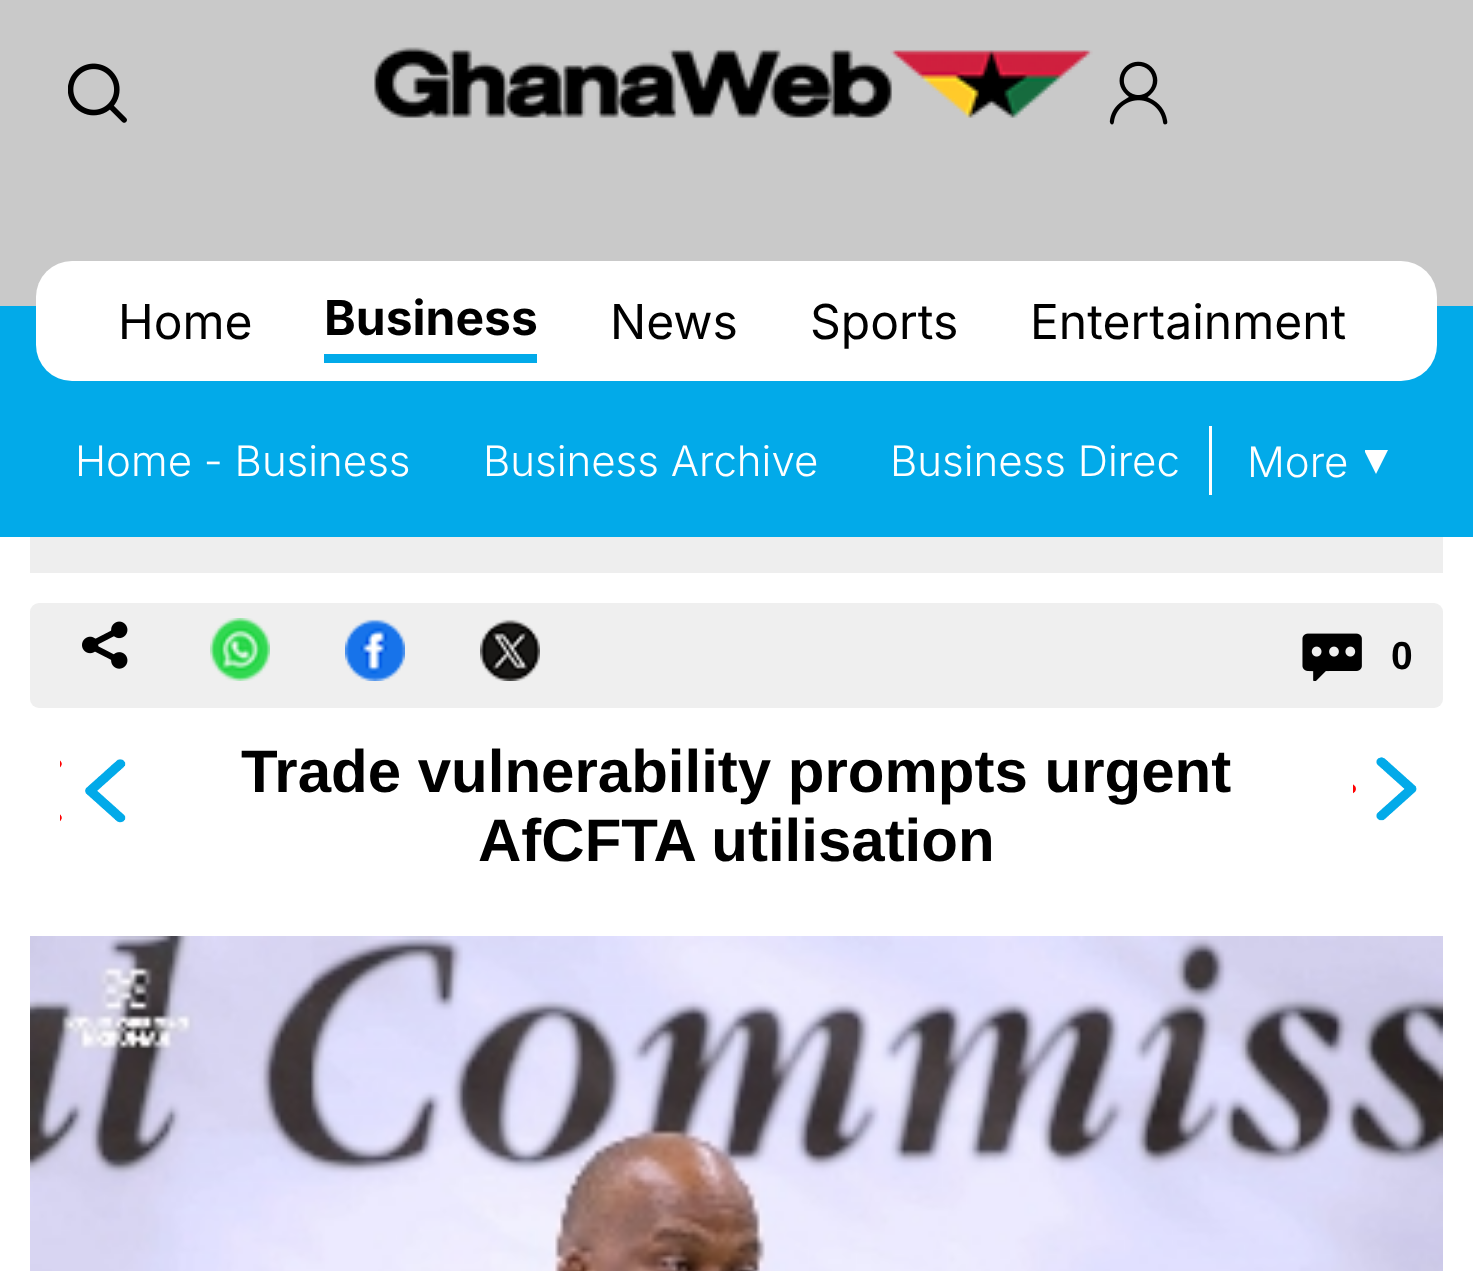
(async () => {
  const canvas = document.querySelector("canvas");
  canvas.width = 1473;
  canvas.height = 1271;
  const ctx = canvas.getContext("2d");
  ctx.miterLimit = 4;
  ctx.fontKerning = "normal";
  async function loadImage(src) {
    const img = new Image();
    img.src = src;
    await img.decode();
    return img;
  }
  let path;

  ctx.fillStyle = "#ffffff";
  ctx.fillRect(0, 0, 1473, 1271);
  ctx.fillStyle = "#c9c9c9";
  ctx.fillRect(0, 0, 1473, 306);
  ctx.drawImage(await loadImage("img/1.png"), 68, 63, 59, 60);
  ctx.drawImage(await loadImage("img/2.png"), 374, 47, 719, 71);
  ctx.drawImage(await loadImage("img/3.png"), 1109, 61, 59, 64);
  ctx.fillStyle = "#02aae9";
  ctx.fillRect(0, 306, 1473, 231);
  ctx.fillStyle = "#ffffff";
  ctx.beginPath();
  ctx.roundRect(36, 261, 1401, 120, 36);
  ctx.fill();
  ctx.fillStyle = "#02aae9";
  ctx.fillRect(324, 354, 213, 9);
  ctx.fillStyle = "#ffffff";
  ctx.fillRect(1209, 426, 3, 69);
  path = new Path2D("M1365 450V452L1376 474L1388 450Z");
  ctx.fill(path);
  ctx.fillStyle = "#eeeeee";
  ctx.fillRect(30, 537, 1413, 36);
  ctx.fillStyle = "#efefef";
  ctx.beginPath();
  ctx.roundRect(30, 603, 1413, 105, 9);
  ctx.fill();
  ctx.drawImage(await loadImage("img/4.png"), 82, 621, 46, 48);
  ctx.drawImage(await loadImage("img/5.png"), 210, 618, 60, 63);
  ctx.drawImage(await loadImage("img/6.png"), 345, 619, 60, 62);
  ctx.drawImage(await loadImage("img/7.png"), 480, 619, 60, 62);
  ctx.drawImage(await loadImage("img/8.png"), 1302, 633, 60, 48);
  ctx.drawImage(await loadImage("img/9.png"), 60, 759, 66, 64);
  ctx.drawImage(await loadImage("img/10.png"), 1353, 757, 64, 64);
  ctx.drawImage(await loadImage("img/11.png"), 30, 936, 1413, 335);
  ctx.font = "48px Inter";
  ctx.fillStyle = "#000000";
  ctx.fillText("Home", 118, 339);
  ctx.font = "bold 48px Inter";
  ctx.fillText("Business", 324, 335);
  ctx.font = "48px Inter";
  for (const [text, x, y] of [
    ["News", 610, 339],
    ["Sports", 810, 339],
    ["Entertainment", 1030, 339],
  ]) {
    ctx.fillText(text, x, y);
  }
  ctx.font = "300 42px Inter";
  ctx.fillStyle = "#ffffff";
  for (const [text, x, y] of [
    ["Home - Business", 75, 476],
    ["Business Archive", 483, 476],
    ["Business Direc", 890, 476],
    ["More", 1247, 477],
  ]) {
    ctx.fillText(text, x, y);
  }
  ctx.font = "bold 39px Liberation Sans";
  ctx.fillStyle = "#000000";
  ctx.fillText("0", 1391, 669);
  ctx.font = "bold 60px Liberation Sans";
  ctx.fillText("Trade vulnerability prompts urgent", 241, 792);
  ctx.fillText("AfCFTA utilisation", 478, 861);
})();
